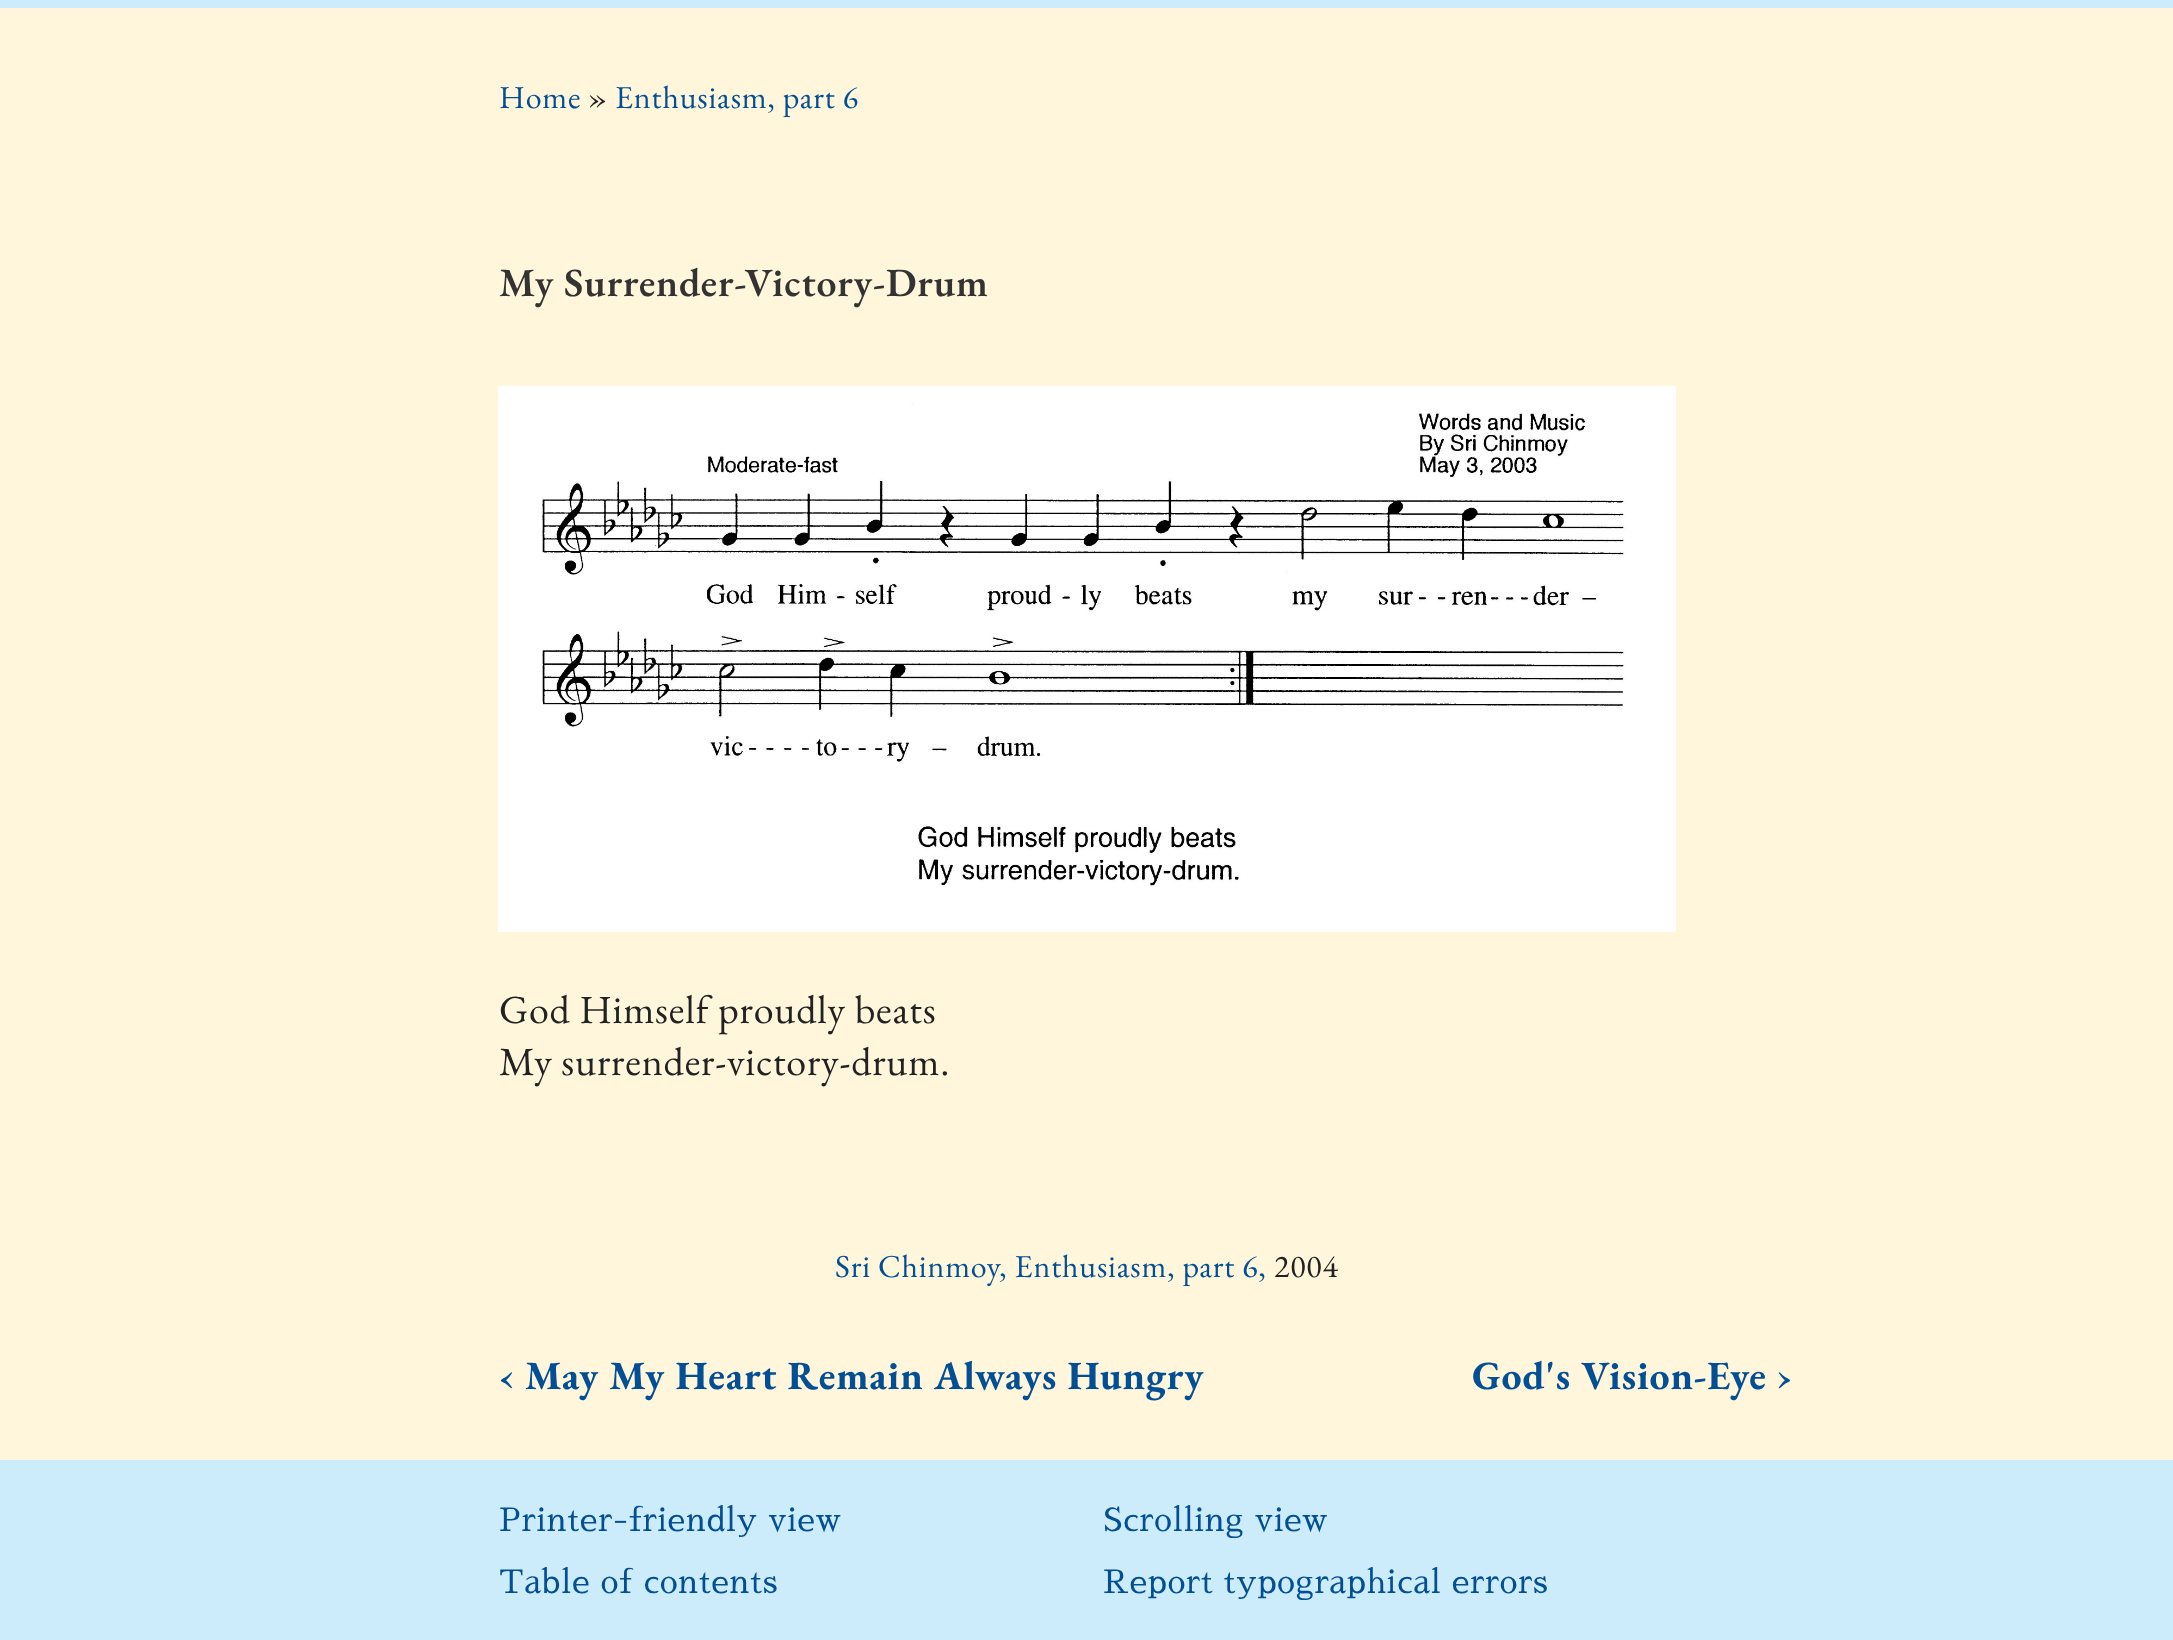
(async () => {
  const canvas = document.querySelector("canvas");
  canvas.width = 2173;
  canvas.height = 1640;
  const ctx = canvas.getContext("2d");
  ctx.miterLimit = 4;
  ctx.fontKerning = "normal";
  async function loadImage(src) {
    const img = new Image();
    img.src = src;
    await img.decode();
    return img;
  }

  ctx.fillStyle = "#fff6dc";
  ctx.fillRect(0, 0, 2173, 1640);
  ctx.fillStyle = "#ccecfc";
  ctx.fillRect(0, 0, 2173, 8);
  ctx.strokeStyle = "#ffffff";
  ctx.lineWidth = 14;
  ctx.strokeRect(505, 393, 1164, 532);
  ctx.drawImage(await loadImage("img/1.png"), 512, 400, 1150, 518);
  ctx.fillRect(0, 1460, 2173, 180);
  ctx.letterSpacing = "0.8px";
  ctx.font = "32px EB Garamond";
  ctx.fillStyle = "#034f95";
  ctx.fillText("Home", 499, 108);
  ctx.fillStyle = "#222222";
  ctx.fillText("»", 588, 108);
  ctx.fillStyle = "#034f95";
  ctx.fillText("Enthusiasm, part 6", 615, 108);
  ctx.font = "600 40px EB Garamond";
  ctx.fillStyle = "#333333";
  ctx.fillText("My Surrender-Victory-Drum", 499, 296);
  ctx.font = "40px EB Garamond";
  ctx.fillStyle = "#222222";
  ctx.fillText("God Himself proudly beats", 499, 1023);
  ctx.fillText("My surrender-victory-drum.", 499, 1075);
  ctx.font = "32px EB Garamond";
  ctx.fillStyle = "#034f95";
  ctx.fillText("Sri Chinmoy, Enthusiasm, part 6,", 835, 1277);
  ctx.fillStyle = "#222222";
  ctx.fillText("2004", 1274, 1277);
  ctx.font = "bold 40px EB Garamond";
  ctx.fillStyle = "#034f95";
  ctx.fillText("‹ May My Heart Remain Always Hungry", 499, 1389);
  ctx.fillText("God's Vision-Eye ›", 1472, 1389);
  ctx.font = "32px Sawarabi Mincho";
  for (const [text, x, y] of [
    ["Printer-friendly view", 499, 1531],
    ["Scrolling view", 1103, 1531],
    ["Table of contents", 499, 1593],
    ["Report typographical errors", 1103, 1593],
  ]) {
    ctx.fillText(text, x, y);
  }
})();
